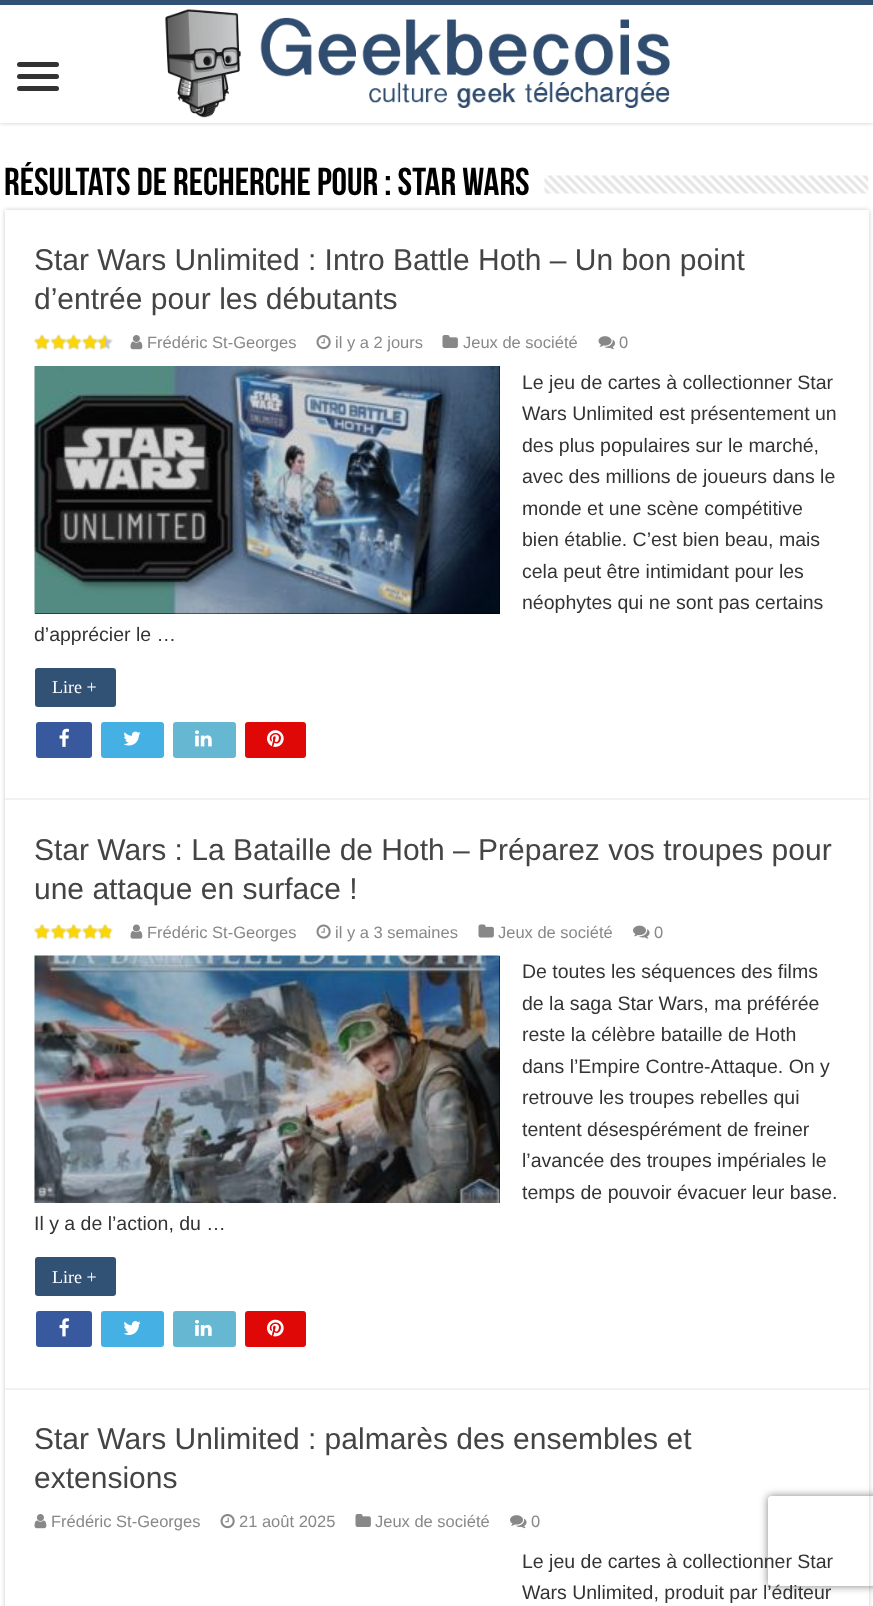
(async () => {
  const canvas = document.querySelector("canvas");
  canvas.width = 873;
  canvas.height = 1606;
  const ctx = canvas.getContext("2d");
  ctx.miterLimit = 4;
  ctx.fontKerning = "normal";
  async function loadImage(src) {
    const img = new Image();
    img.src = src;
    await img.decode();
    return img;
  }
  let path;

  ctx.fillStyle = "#ffffff";
  ctx.fillRect(0, 0, 873, 1606);
  ctx.save();
  ctx.beginPath();
  ctx.rect(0, 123, 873, 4);
  ctx.clip();
  ctx.fillStyle = "#cacaca";
  ctx.filter = "blur(2px)";
  ctx.beginPath();
  ctx.rect(0, 0, 873, 123);
  ctx.fill();
  ctx.filter = "none";
  ctx.restore();
  ctx.fillStyle = "#315175";
  ctx.fillRect(0, 0, 873, 5);
  ctx.fillStyle = "#333333";
  ctx.beginPath();
  ctx.roundRect(17, 62, 42, 5, 2.5);
  ctx.fill();
  ctx.beginPath();
  ctx.roundRect(17, 74, 42, 5, 2.5);
  ctx.fill();
  ctx.beginPath();
  ctx.roundRect(17, 86, 42, 5, 2.5);
  ctx.fill();
  ctx.drawImage(await loadImage("img/1.png"), 165, 9, 505, 109);
  ctx.drawImage(await loadImage("img/2.png"), 544, 175, 325, 19);
  ctx.fillStyle = "#cacaca";
  ctx.filter = "blur(2px)";
  ctx.beginPath();
  ctx.rect(5, 210, 864, 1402);
  ctx.fill();
  ctx.filter = "none";
  ctx.fillStyle = "#ffffff";
  ctx.fillRect(5, 210, 864, 1396);
  ctx.fillStyle = "#f2f2f2";
  ctx.fillRect(5, 798, 864, 2);
  ctx.drawImage(await loadImage("img/3.png"), 34, 334, 79, 16);
  ctx.drawImage(await loadImage("img/4.png"), 34, 334, 71, 16);
  ctx.drawImage(await loadImage("img/5.png"), 130, 335, 13, 15);
  ctx.drawImage(await loadImage("img/6.png"), 316, 335, 15, 15);
  ctx.drawImage(await loadImage("img/7.png"), 442, 335, 16, 13);
  ctx.drawImage(await loadImage("img/8.png"), 598, 336, 17, 14);
  ctx.fillStyle = "#000000";
  ctx.fillRect(35, 366, 465, 248);
  ctx.drawImage(await loadImage("img/9.png"), 34, 366, 466, 248);
  ctx.fillStyle = "#315175";
  ctx.beginPath();
  ctx.roundRect(35, 668, 81, 39, 3);
  ctx.fill();
  ctx.fillStyle = "#39599f";
  ctx.beginPath();
  ctx.roundRect(36, 722, 56, 36, 3);
  ctx.fill();
  ctx.drawImage(await loadImage("img/10.png"), 59, 728, 10, 19);
  ctx.fillStyle = "#45b0e3";
  ctx.beginPath();
  ctx.roundRect(101, 722, 63, 36, 3);
  ctx.fill();
  ctx.drawImage(await loadImage("img/11.png"), 123, 731, 18, 15);
  ctx.fillStyle = "#65b7d2";
  ctx.beginPath();
  ctx.roundRect(173, 722, 63, 36, 3);
  ctx.fill();
  ctx.drawImage(await loadImage("img/12.png"), 195, 730, 17, 17);
  ctx.fillStyle = "#e00707";
  ctx.beginPath();
  ctx.roundRect(245, 722, 61, 36, 3);
  ctx.fill();
  ctx.drawImage(await loadImage("img/13.png"), 267, 730, 17, 17);
  ctx.fillStyle = "#f2f2f2";
  ctx.fillRect(5, 1388, 864, 2);
  ctx.drawImage(await loadImage("img/14.png"), 34, 924, 79, 16);
  ctx.drawImage(await loadImage("img/15.png"), 34, 923, 77, 17);
  ctx.drawImage(await loadImage("img/16.png"), 130, 924, 13, 15);
  ctx.drawImage(await loadImage("img/17.png"), 316, 924, 15, 15);
  ctx.drawImage(await loadImage("img/18.png"), 478, 924, 16, 14);
  ctx.drawImage(await loadImage("img/19.png"), 633, 925, 17, 14);
  ctx.fillStyle = "#000000";
  ctx.fillRect(499, 956, 1, 247);
  ctx.drawImage(await loadImage("img/20.png"), 34, 955, 466, 248);
  ctx.fillStyle = "#315175";
  ctx.beginPath();
  ctx.roundRect(35, 1257, 81, 39, 3);
  ctx.fill();
  ctx.fillStyle = "#39599f";
  ctx.beginPath();
  ctx.roundRect(36, 1311, 56, 36, 3);
  ctx.fill();
  ctx.drawImage(await loadImage("img/21.png"), 59, 1318, 10, 19);
  ctx.fillStyle = "#45b0e3";
  ctx.beginPath();
  ctx.roundRect(101, 1311, 63, 36, 3);
  ctx.fill();
  ctx.drawImage(await loadImage("img/22.png"), 123, 1321, 18, 14);
  ctx.fillStyle = "#65b7d2";
  ctx.beginPath();
  ctx.roundRect(173, 1311, 63, 36, 3);
  ctx.fill();
  ctx.drawImage(await loadImage("img/23.png"), 195, 1319, 17, 17);
  ctx.fillStyle = "#e00707";
  ctx.beginPath();
  ctx.roundRect(245, 1311, 61, 36, 3);
  ctx.fill();
  ctx.drawImage(await loadImage("img/24.png"), 267, 1319, 17, 18);
  ctx.drawImage(await loadImage("img/5.png"), 34, 1514, 13, 15);
  ctx.drawImage(await loadImage("img/6.png"), 220, 1514, 15, 15);
  ctx.drawImage(await loadImage("img/7.png"), 355, 1514, 16, 13);
  ctx.drawImage(await loadImage("img/25.png"), 510, 1515, 17, 14);
  ctx.save();
  path = new Path2D("M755 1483H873V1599H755ZM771 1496H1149C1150.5 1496 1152 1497.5 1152 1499V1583C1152 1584.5 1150.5 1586 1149 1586H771C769.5 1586 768 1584.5 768 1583V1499C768 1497.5 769.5 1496 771 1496Z");
  ctx.clip(path, "evenodd");
  ctx.fillStyle = "#808080";
  ctx.filter = "blur(4px)";
  ctx.beginPath();
  ctx.roundRect(768, 1496, 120, 90, 3);
  ctx.fill();
  ctx.filter = "none";
  ctx.restore();
  ctx.font = "bold 39px Bebas Neue";
  ctx.fillStyle = "#000000";
  ctx.fillText("Résultats de recherche pour : star wars", 4, 195);
  ctx.font = "30px Liberation Sans";
  ctx.fillStyle = "#444444";
  ctx.fillText("Star Wars Unlimited : Intro Battle Hoth – Un bon point", 34, 270);
  ctx.fillText("d’entrée pour les débutants", 34, 309);
  ctx.font = "16.5px Liberation Sans";
  ctx.fillStyle = "#888888";
  for (const [text, x, y] of [
    ["Frédéric St-Georges", 147, 348],
    ["il y a 2 jours", 335, 348],
    ["Jeux de société", 463, 348],
    ["0", 619, 348],
  ]) {
    ctx.fillText(text, x, y);
  }
  ctx.font = "19.5px Liberation Sans";
  ctx.fillStyle = "#333333";
  for (const [text, x, y] of [
    ["Le jeu de cartes à collectionner Star", 522, 389],
    ["Wars Unlimited est présentement un", 522, 420],
    ["des plus populaires sur le marché,", 522, 452],
    ["avec des millions de joueurs dans le", 522, 483],
    ["monde et une scène compétitive", 522, 515],
    ["bien établie. C’est bien beau, mais", 522, 546],
    ["cela peut être intimidant pour les", 522, 578],
    ["néophytes qui ne sont pas certains", 522, 609],
    ["d’apprécier le …", 34, 641],
  ]) {
    ctx.fillText(text, x, y);
  }
  ctx.font = "18px Liberation Serif";
  ctx.fillStyle = "#ffffff";
  ctx.fillText("Lire +", 52, 693);
  ctx.font = "30px Liberation Sans";
  ctx.fillStyle = "#444444";
  ctx.fillText("Star Wars : La Bataille de Hoth – Préparez vos troupes pour", 34, 860);
  ctx.fillText("une attaque en surface !", 34, 899);
  ctx.font = "16.5px Liberation Sans";
  ctx.fillStyle = "#888888";
  for (const [text, x, y] of [
    ["Frédéric St-Georges", 147, 938],
    ["il y a 3 semaines", 335, 938],
    ["Jeux de société", 498, 938],
    ["0", 654, 938],
  ]) {
    ctx.fillText(text, x, y);
  }
  ctx.font = "19.5px Liberation Sans";
  ctx.fillStyle = "#333333";
  for (const [text, x, y] of [
    ["De toutes les séquences des films", 522, 978],
    ["de la saga Star Wars, ma préférée", 522, 1010],
    ["reste la célèbre bataille de Hoth", 522, 1041],
    ["dans l’Empire Contre-Attaque. On y", 522, 1073],
    ["retrouve les troupes rebelles qui", 522, 1104],
    ["tentent désespérément de freiner", 522, 1136],
    ["l’avancée des troupes impériales le", 522, 1167],
    ["temps de pouvoir évacuer leur base.", 522, 1199],
    ["Il y a de l’action, du …", 34, 1230],
  ]) {
    ctx.fillText(text, x, y);
  }
  ctx.font = "18px Liberation Serif";
  ctx.fillStyle = "#ffffff";
  ctx.fillText("Lire +", 52, 1283);
  ctx.font = "30px Liberation Sans";
  ctx.fillStyle = "#444444";
  ctx.fillText("Star Wars Unlimited : palmarès des ensembles et", 34, 1449);
  ctx.fillText("extensions", 34, 1488);
  ctx.font = "16.5px Liberation Sans";
  ctx.fillStyle = "#888888";
  for (const [text, x, y] of [
    ["Frédéric St-Georges", 51, 1527],
    ["21 août 2025", 239, 1527],
    ["Jeux de société", 375, 1527],
    ["0", 531, 1527],
  ]) {
    ctx.fillText(text, x, y);
  }
  ctx.font = "19.5px Liberation Sans";
  ctx.fillStyle = "#333333";
  ctx.fillText("Le jeu de cartes à collectionner Star", 522, 1568);
  ctx.fillText("Wars Unlimited, produit par l’éditeur", 522, 1599);
})();
